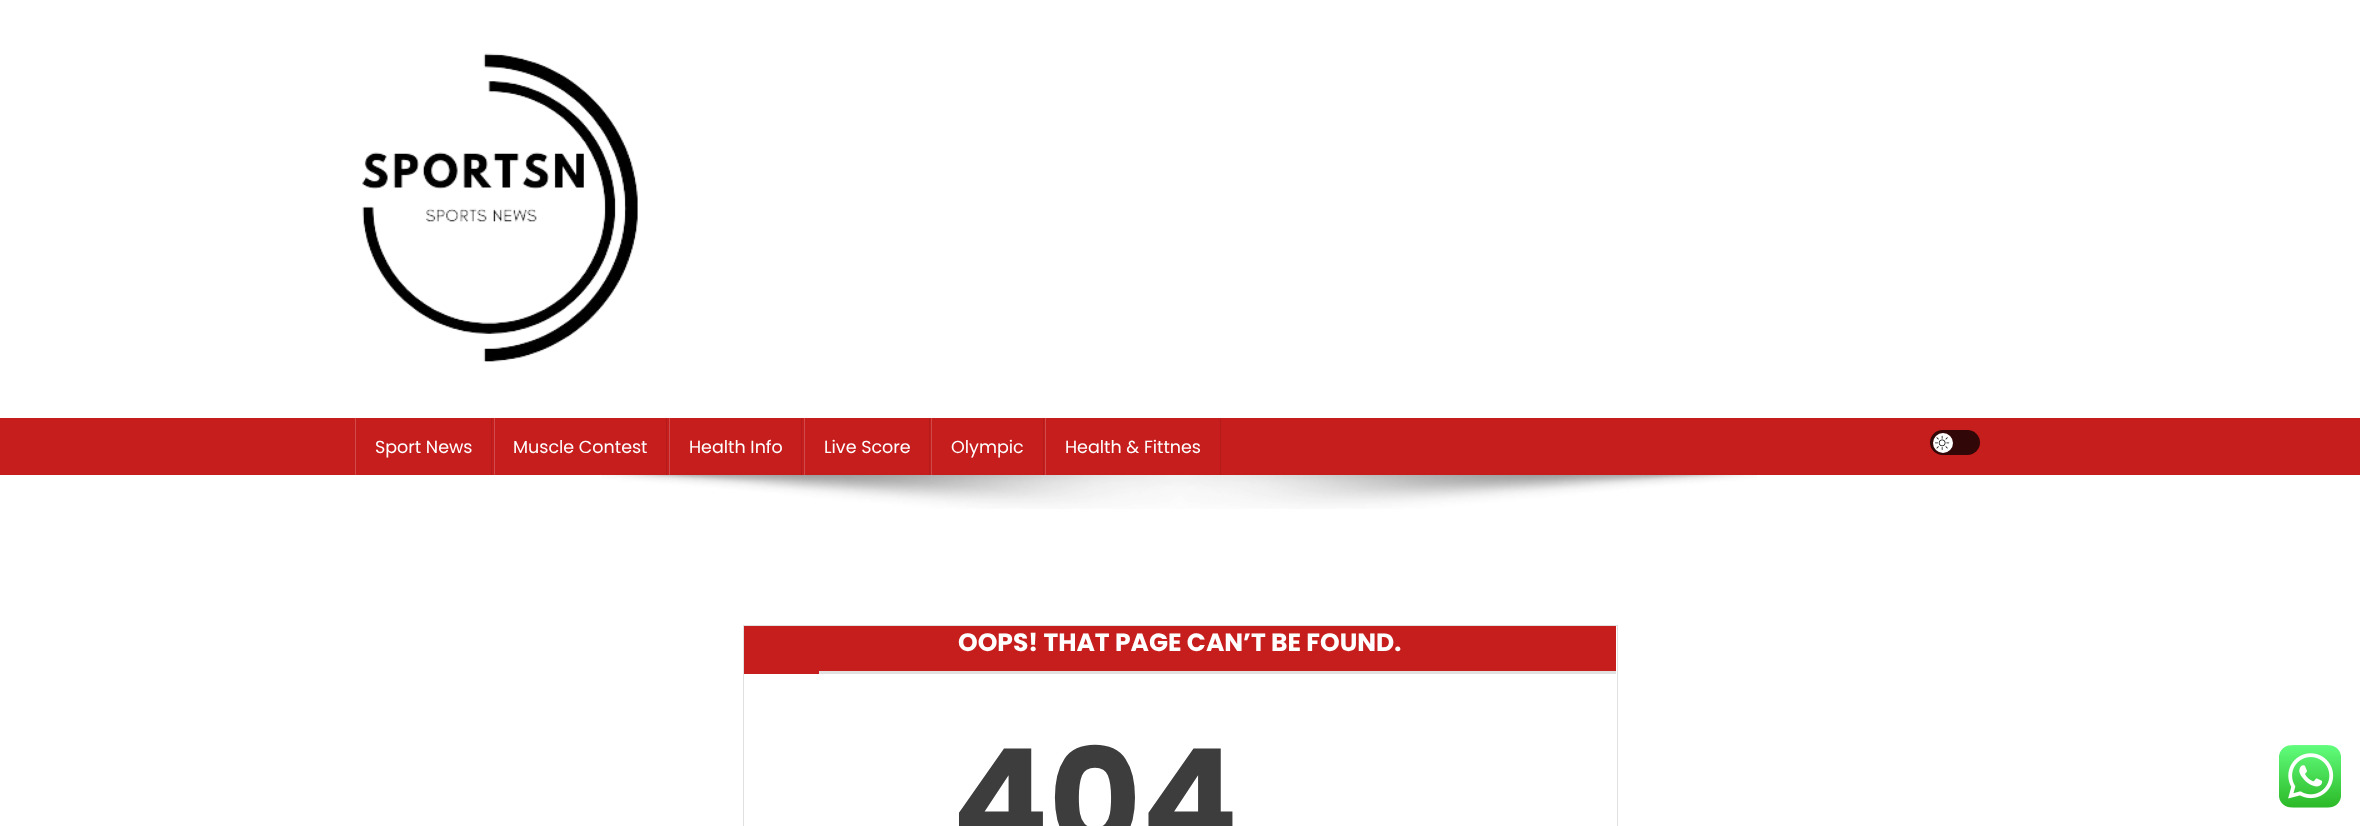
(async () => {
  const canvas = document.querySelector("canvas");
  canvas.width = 2360;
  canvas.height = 826;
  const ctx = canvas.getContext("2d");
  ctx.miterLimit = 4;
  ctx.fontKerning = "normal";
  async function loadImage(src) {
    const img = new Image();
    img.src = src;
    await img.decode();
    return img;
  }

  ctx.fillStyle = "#ffffff";
  ctx.fillRect(0, 0, 2360, 826);
  ctx.drawImage(await loadImage("img/1.png"), 362, 53, 276, 309);
  for (const [x, y, w, h, color] of [
    [0, 418, 2360, 57, "#c61d1d"],
    [491, 418, 1, 57, "#b61b1b"],
    [355, 418, 1, 57, "#d14a4a"],
    [666, 418, 1, 57, "#b61b1b"],
    [494, 418, 1, 57, "#d14a4a"],
    [801, 418, 1, 57, "#b61b1b"],
    [669, 418, 1, 57, "#d14a4a"],
    [929, 418, 1, 57, "#b61b1b"],
    [804, 418, 1, 57, "#d14a4a"],
    [1043, 418, 1, 57, "#b61b1b"],
    [931, 418, 1, 57, "#d14a4a"],
    [1220, 418, 1, 57, "#b61b1b"],
    [1045, 418, 1, 57, "#d14a4a"],
  ]) {
    ctx.fillStyle = color;
    ctx.fillRect(x, y, w, h);
  }
  ctx.fillStyle = "#320707";
  ctx.beginPath();
  ctx.roundRect(1930, 430, 50, 25, 12.5);
  ctx.fill();
  ctx.fillStyle = "#ffffff";
  ctx.beginPath();
  ctx.arc(1943, 443, 10, 0, Math.PI * 2);
  ctx.fill();
  ctx.drawImage(await loadImage("img/2.png"), 1935, 435, 15, 15);
  ctx.drawImage(await loadImage("img/3.png"), 601, 475, 1156, 34);
  ctx.strokeStyle = "#e1e1e1";
  ctx.strokeRect(743.5, 625.5, 874, 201);
  for (const [x, y, w, h, color] of [
    [744, 626, 872, 45, "#c61d1d"],
    [819, 671, 797, 3, "#e1e1e1"],
    [744, 671, 75, 3, "#c61d1d"],
  ]) {
    ctx.fillStyle = color;
    ctx.fillRect(x, y, w, h);
  }
  ctx.drawImage(await loadImage("img/4.png"), 2279, 745, 62, 63);
  ctx.font = "17.5px Poppins";
  ctx.fillStyle = "#ffffff";
  for (const [text, x, y] of [
    ["Sport News", 375, 453],
    ["Muscle Contest", 513, 453],
    ["Health Info", 689, 453],
    ["Live Score", 824, 453],
    ["Olympic", 951, 453],
    ["Health & Fittnes", 1065, 453],
  ]) {
    ctx.fillText(text, x, y);
  }
  ctx.font = "bold 25px Poppins";
  ctx.fillText("OOPS! THAT PAGE CAN’T BE FOUND.", 958, 651);
  ctx.font = "bold 142.5px Poppins";
  ctx.fillStyle = "#3d3d3d";
  ctx.fillText("404", 952, 851);
})();
